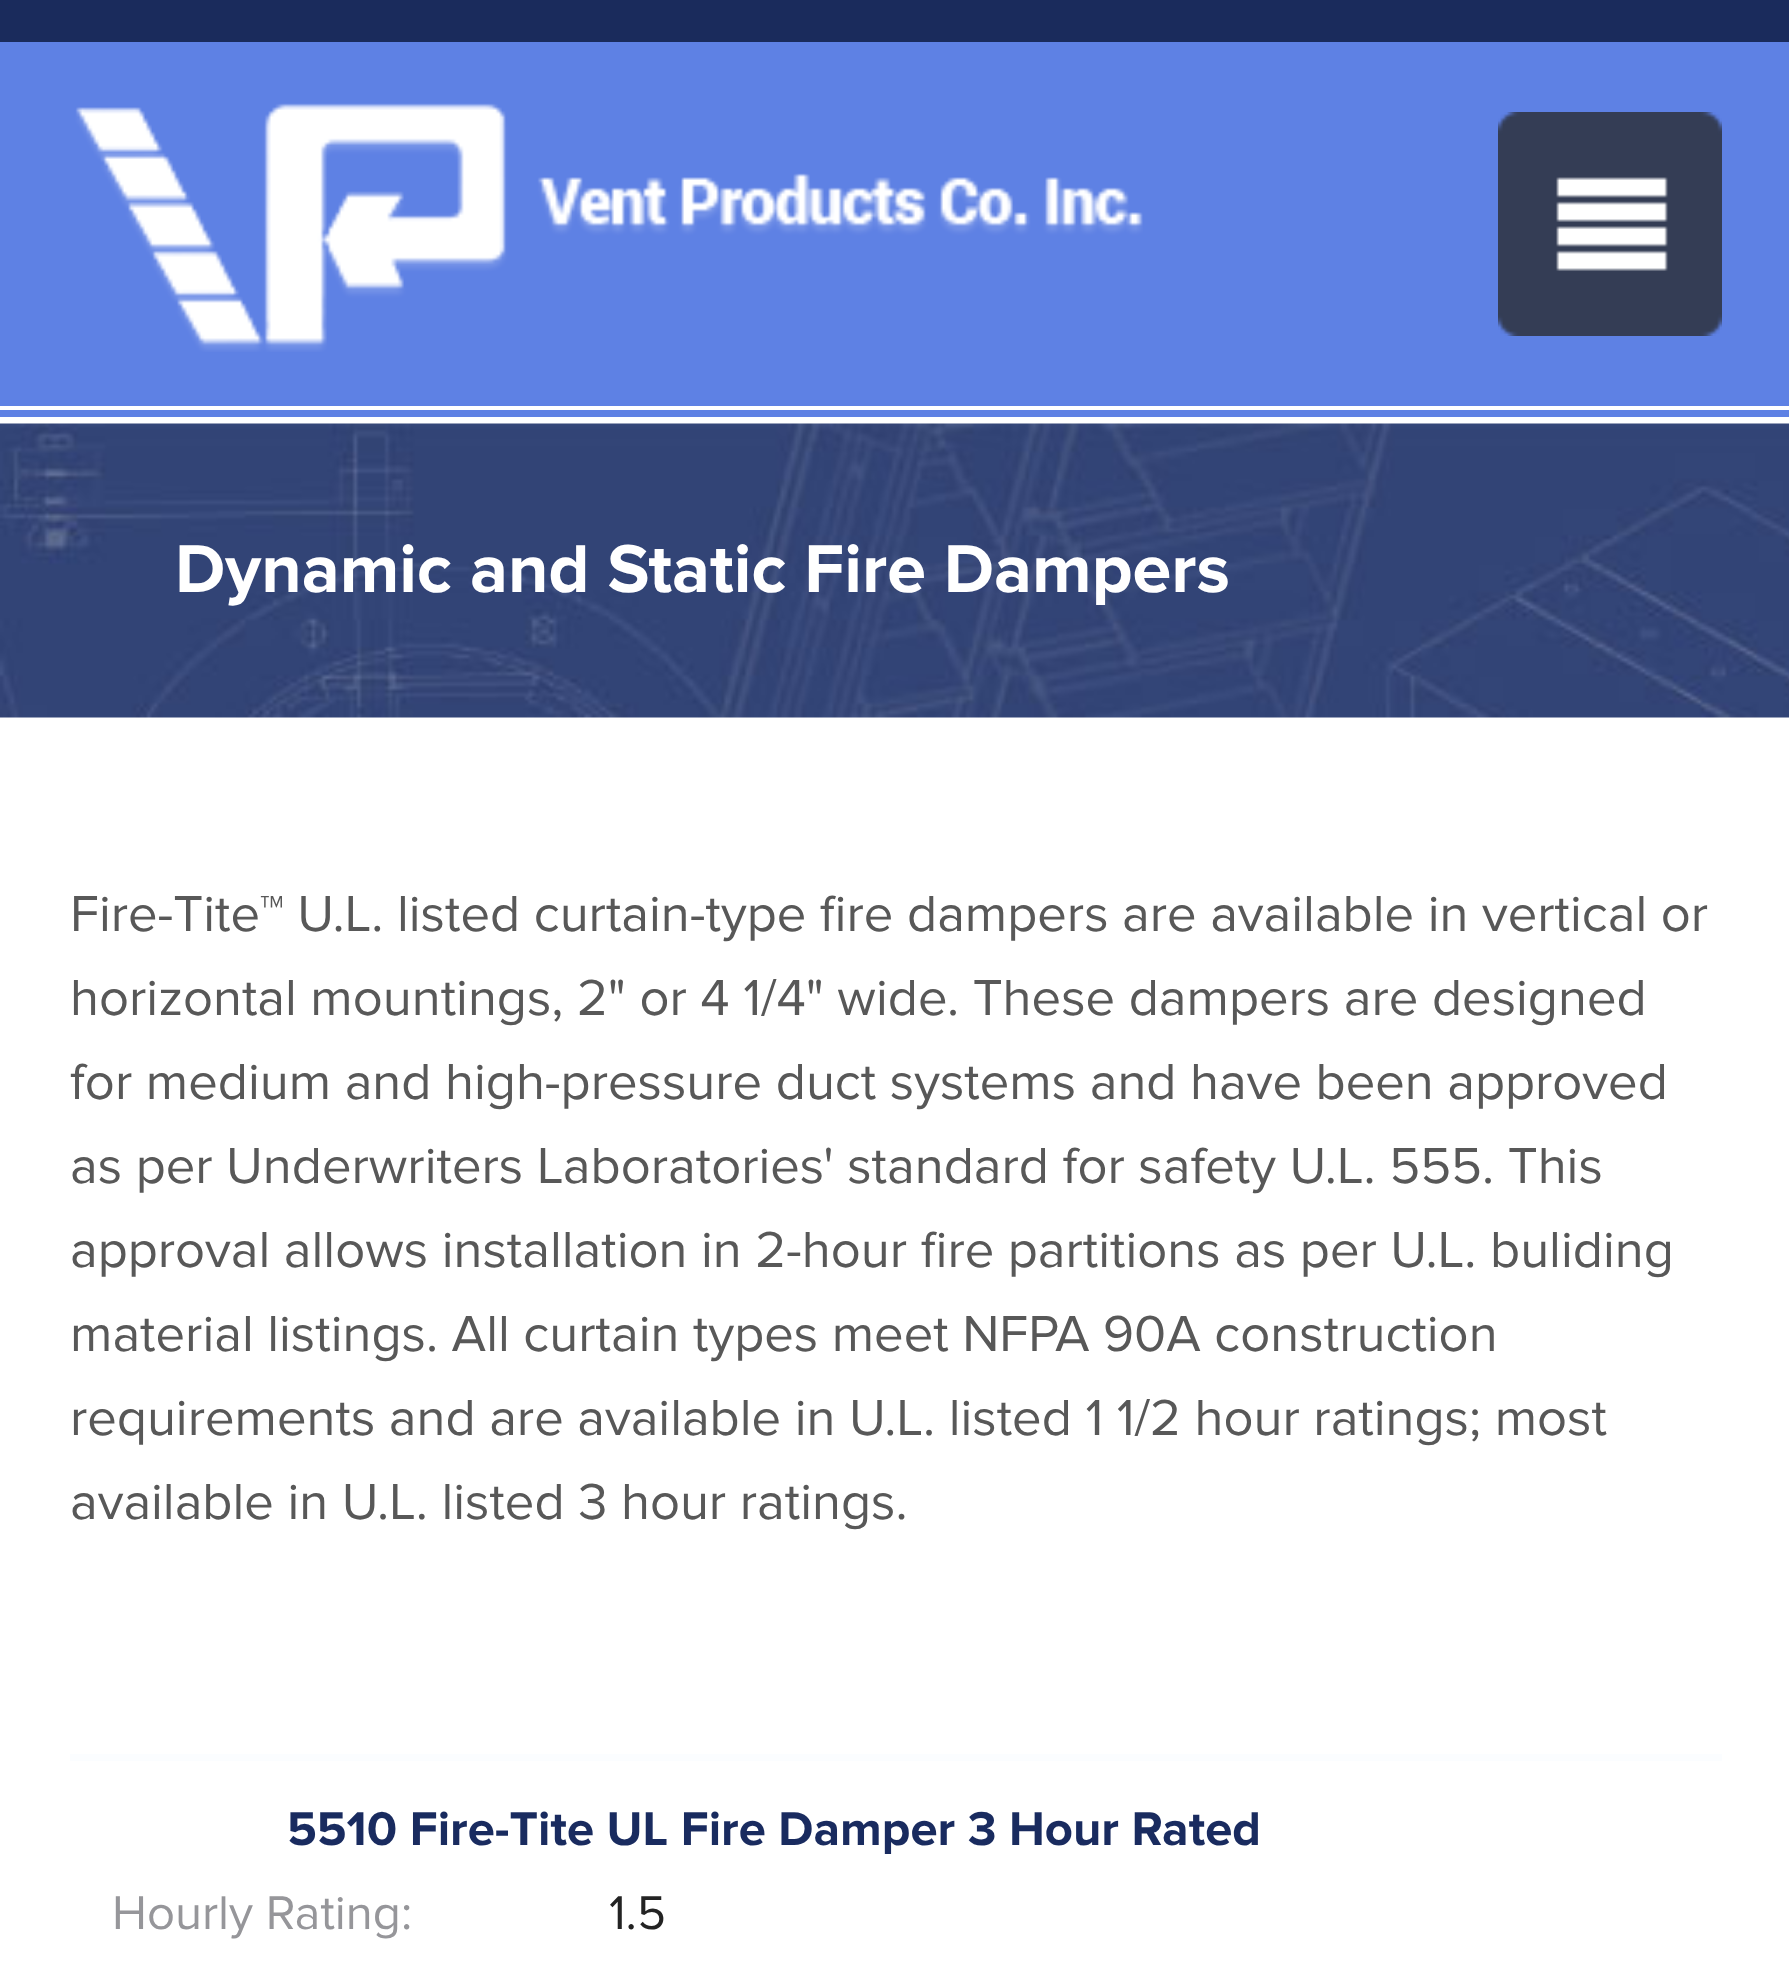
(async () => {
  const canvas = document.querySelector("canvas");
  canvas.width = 1789;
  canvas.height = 1971;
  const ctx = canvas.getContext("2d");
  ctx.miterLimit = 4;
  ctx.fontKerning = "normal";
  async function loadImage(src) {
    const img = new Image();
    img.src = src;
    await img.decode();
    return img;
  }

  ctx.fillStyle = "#ffffff";
  ctx.fillRect(0, 0, 1789, 1971);
  for (const [x, y, w, h, color] of [
    [0, 410, 1789, 7, "#5e81e4"],
    [0, 0, 1789, 42, "#1a2b5c"],
    [0, 42, 1789, 364, "#5e81e4"],
  ]) {
    ctx.fillStyle = color;
    ctx.fillRect(x, y, w, h);
  }
  ctx.drawImage(await loadImage("img/1.png"), 75, 103, 1068, 249);
  ctx.drawImage(await loadImage("img/2.png"), 1498, 112, 224, 224);
  ctx.drawImage(await loadImage("img/3.png"), 0, 423, 1789, 295);
  ctx.fillStyle = "#fbfdff";
  ctx.fillRect(70, 1754, 1652, 7);
  ctx.font = "bold 70px Proxima Nova";
  ctx.fillStyle = "#ffffff";
  ctx.fillText("Dynamic and Static Fire Dampers", 175, 592);
  ctx.font = "52.5px Proxima Nova";
  ctx.fillStyle = "#585858";
  for (const [text, x, y] of [
    ["Fire-Tite™ U.L. listed curtain-type fire dampers are available in vertical or", 70, 931],
    ["horizontal mountings, 2\" or 4 1/4\" wide. These dampers are designed", 70, 1015],
    ["for medium and high-pressure duct systems and have been approved", 70, 1099],
    ["as per Underwriters Laboratories' standard for safety U.L. 555. This", 70, 1183],
    ["approval allows installation in 2-hour fire partitions as per U.L. buliding", 70, 1267],
    ["material listings. All curtain types meet NFPA 90A construction", 70, 1351],
    ["requirements and are available in U.L. listed 1 1/2 hour ratings; most", 70, 1435],
    ["available in U.L. listed 3 hour ratings.", 70, 1519],
  ]) {
    ctx.fillText(text, x, y);
  }
  ctx.font = "bold 49px Proxima Nova";
  ctx.fillStyle = "#192b5f";
  ctx.fillText("5510 Fire-Tite UL Fire Damper 3 Hour Rated", 287, 1845);
  ctx.font = "49px Proxima Nova";
  ctx.fillStyle = "#96969a";
  ctx.fillText("Hourly Rating:", 112, 1929);
  ctx.fillStyle = "#232323";
  ctx.fillText("1.5", 609, 1929);
})();
